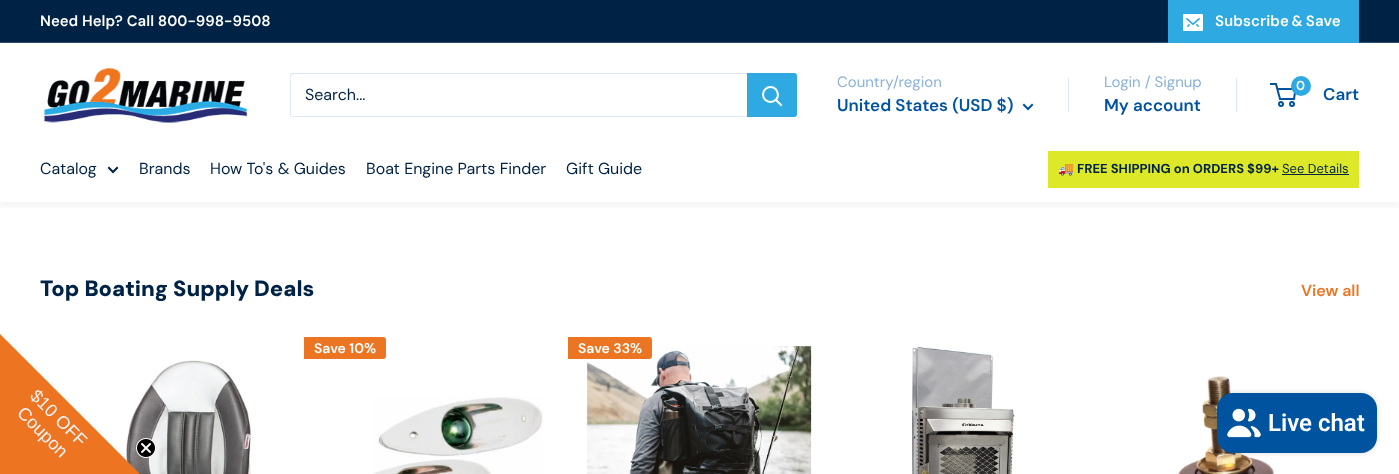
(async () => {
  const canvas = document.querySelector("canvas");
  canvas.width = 1399;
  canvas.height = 474;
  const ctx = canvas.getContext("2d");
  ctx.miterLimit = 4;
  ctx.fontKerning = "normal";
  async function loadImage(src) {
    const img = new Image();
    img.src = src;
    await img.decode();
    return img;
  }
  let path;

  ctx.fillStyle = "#ffffff";
  ctx.fillRect(0, 0, 1399, 474);
  for (const [x, y, w, h, color] of [
    [0, 0, 1399, 42, "#002244"],
    [0, 42, 1399, 1, "#2a4d70"],
    [1168, 0, 191, 43, "#2ea9e1"],
  ]) {
    ctx.fillStyle = color;
    ctx.fillRect(x, y, w, h);
  }
  ctx.drawImage(await loadImage("img/1.png"), 1183, 14, 20, 17);
  ctx.drawImage(await loadImage("img/2.png"), 44, 68, 204, 55);
  ctx.fillStyle = "#dce8f3";
  path = new Path2D("M291 116C291 117 292 117 293 117H794C796 117 797 116 797 114V76C797 75 797 74 796 74V107C796 109 798 116 793 116Z");
  ctx.fill(path);
  path = new Path2D("M294 74H796C796 73 795 73 794 73H293C291 73 290 74 290 76V114C290 115 290 116 291 116V83C291 81 289 74 294 74Z");
  ctx.fill(path);
  ctx.fillStyle = "#2ea9e1";
  ctx.beginPath();
  ctx.roundRect(747, 73, 50, 44, [0, 3, 3, 0]);
  ctx.fill();
  path = new Path2D("M781 105L776 100");
  ctx.strokeStyle = "#ffffff";
  ctx.lineWidth = 2;
  ctx.lineCap = "square";
  ctx.stroke(path);
  ctx.beginPath();
  ctx.arc(770.5, 94.5, 7.5, 0, Math.PI * 2);
  ctx.stroke();
  path = new Path2D("M1032 105L1028 109L1024 105");
  ctx.strokeStyle = "#00539f";
  ctx.stroke(path);
  ctx.fillStyle = "#dce8f3";
  ctx.fillRect(1068, 78, 1, 34);
  ctx.fillRect(1236, 78, 1, 34);
  ctx.beginPath();
  ctx.arc(1281, 104, 2, 0, Math.PI * 2);
  ctx.stroke();
  ctx.beginPath();
  ctx.arc(1292, 104, 2, 0, Math.PI * 2);
  ctx.stroke();
  path = new Path2D("M1277.5 89H1295.5L1294 99H1280L1276 84H1270");
  ctx.lineCap = "butt";
  ctx.stroke(path);
  ctx.fillStyle = "#2ea9e1";
  ctx.beginPath();
  ctx.arc(1301, 86, 10, 0, Math.PI * 2);
  ctx.fill();
  ctx.save();
  ctx.beginPath();
  ctx.rect(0, 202, 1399, 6);
  ctx.clip();
  ctx.fillStyle = "rgba(0, 0, 0, 0.05)";
  ctx.filter = "blur(5px)";
  ctx.beginPath();
  ctx.rect(0, 142, 1399, 65);
  ctx.fill();
  ctx.filter = "none";
  ctx.restore();
  path = new Path2D("M117 168L113 172L109 168");
  ctx.strokeStyle = "#002244";
  ctx.lineCap = "square";
  ctx.stroke(path);
  ctx.fillStyle = "#dde828";
  ctx.fillRect(1048, 151, 311, 37);
  ctx.fillStyle = "#002244";
  ctx.fillRect(1282, 174, 67, 1);
  ctx.drawImage(await loadImage("img/3.png"), 126, 360, 125, 114);
  ctx.fillStyle = "#ec7524";
  ctx.beginPath();
  ctx.roundRect(304, 337, 82, 22, [0, 3, 3, 0]);
  ctx.fill();
  ctx.drawImage(await loadImage("img/4.png"), 372, 397, 172, 77);
  ctx.drawImage(await loadImage("img/5.png"), 587, 346, 225, 128);
  ctx.beginPath();
  ctx.roundRect(568, 337, 84, 22, [0, 3, 3, 0]);
  ctx.fill();
  ctx.drawImage(await loadImage("img/6.png"), 912, 346, 103, 128);
  ctx.drawImage(await loadImage("img/7.png"), 1177, 376, 98, 98);
  ctx.fillStyle = "#ed7522";
  path = new Path2D("M0 334V474H140Z");
  ctx.fill(path);
  ctx.drawImage(await loadImage("img/8.png"), 136, 438, 20, 20);
  ctx.fillStyle = "rgba(0, 0, 0, 0.15)";
  ctx.filter = "blur(2.5px)";
  ctx.beginPath();
  ctx.roundRect(1217, 393, 160, 60, 16);
  ctx.fill();
  ctx.filter = "none";
  ctx.fillStyle = "#00539f";
  ctx.beginPath();
  ctx.roundRect(1217, 393, 160, 60, 16);
  ctx.fill();
  ctx.drawImage(await loadImage("img/9.png"), 1227, 408, 34, 30);
  ctx.font = "600 15px DM Sans";
  ctx.fillStyle = "#ffffff";
  ctx.fillText("Need Help? Call 800-998-9508", 40, 26);
  ctx.wordSpacing = "-1px";
  ctx.fillText("Subscribe & Save", 1215, 26);
  ctx.wordSpacing = "0px";
  ctx.font = "16px 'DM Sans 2'";
  ctx.fillStyle = "#002244";
  ctx.fillText("Search...", 305, 100);
  ctx.font = "15px DM Sans";
  ctx.fillStyle = "#8bb2d7";
  ctx.fillText("Country/region", 837, 87);
  ctx.font = "600 17px 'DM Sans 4'";
  ctx.fillStyle = "#00539f";
  ctx.fillText("United States (USD $)", 837, 111);
  ctx.font = "15px DM Sans";
  ctx.fillStyle = "#8bb2d7";
  ctx.fillText("Login / Signup", 1104, 87);
  ctx.font = "600 17px 'DM Sans 4'";
  ctx.fillStyle = "#00539f";
  ctx.fillText("My account", 1104, 111);
  ctx.font = "600 13px 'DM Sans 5'";
  ctx.fillStyle = "#ffffff";
  ctx.fillText("0", 1296, 90);
  ctx.font = "600 17px 'DM Sans 4'";
  ctx.fillStyle = "#00539f";
  ctx.fillText("Cart", 1323, 100);
  ctx.font = "16px 'DM Sans 2'";
  ctx.fillStyle = "#002244";
  for (const [text, x, y] of [
    ["Catalog", 40, 174],
    ["Brands", 139, 174],
    ["How To's & Guides", 210, 174],
    ["Boat Engine Parts Finder", 366, 174],
    ["Gift Guide", 566, 174],
  ]) {
    ctx.fillText(text, x, y);
  }
  ctx.font = "bold 13px Noto Color Emoji";
  ctx.fillText("🚚", 1058, 173);
  ctx.font = "bold 13px DM Sans";
  ctx.fillText("FREE SHIPPING on ORDERS $99+", 1077, 173);
  ctx.font = "13px 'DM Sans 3'";
  ctx.fillText("See Details", 1282, 173);
  ctx.font = "900 22px DM Sans";
  ctx.fillText("Top Boating Supply Deals", 40, 296);
  ctx.font = "600 16px 'DM Sans 2'";
  ctx.fillStyle = "#ec7524";
  ctx.fillText("View all", 1301, 296);
  ctx.font = "600 14px 'DM Sans 3'";
  ctx.fillStyle = "#ffffff";
  ctx.fillText("Save 10%", 314, 353);
  ctx.fillText("Save 33%", 578, 353);
  ctx.font = "18px Liberation Sans";
  ctx.fillStyle = "#f3f1f1";
  ctx.save();
  ctx.translate(29, 397);
  ctx.rotate(45 * Math.PI / 180);
  ctx.fillText("$10", 0, 0);
  ctx.restore();
  ctx.save();
  ctx.translate(54, 422);
  ctx.rotate(45 * Math.PI / 180);
  ctx.fillText("OFF", 0, 0);
  ctx.restore();
  ctx.save();
  ctx.translate(16, 414);
  ctx.rotate(45 * Math.PI / 180);
  ctx.fillText("Coupon", 0, 0);
  ctx.restore();
  ctx.font = "600 24px Roboto";
  ctx.fillStyle = "#ffffff";
  ctx.fillText("Live chat", 1268, 431);
})();
